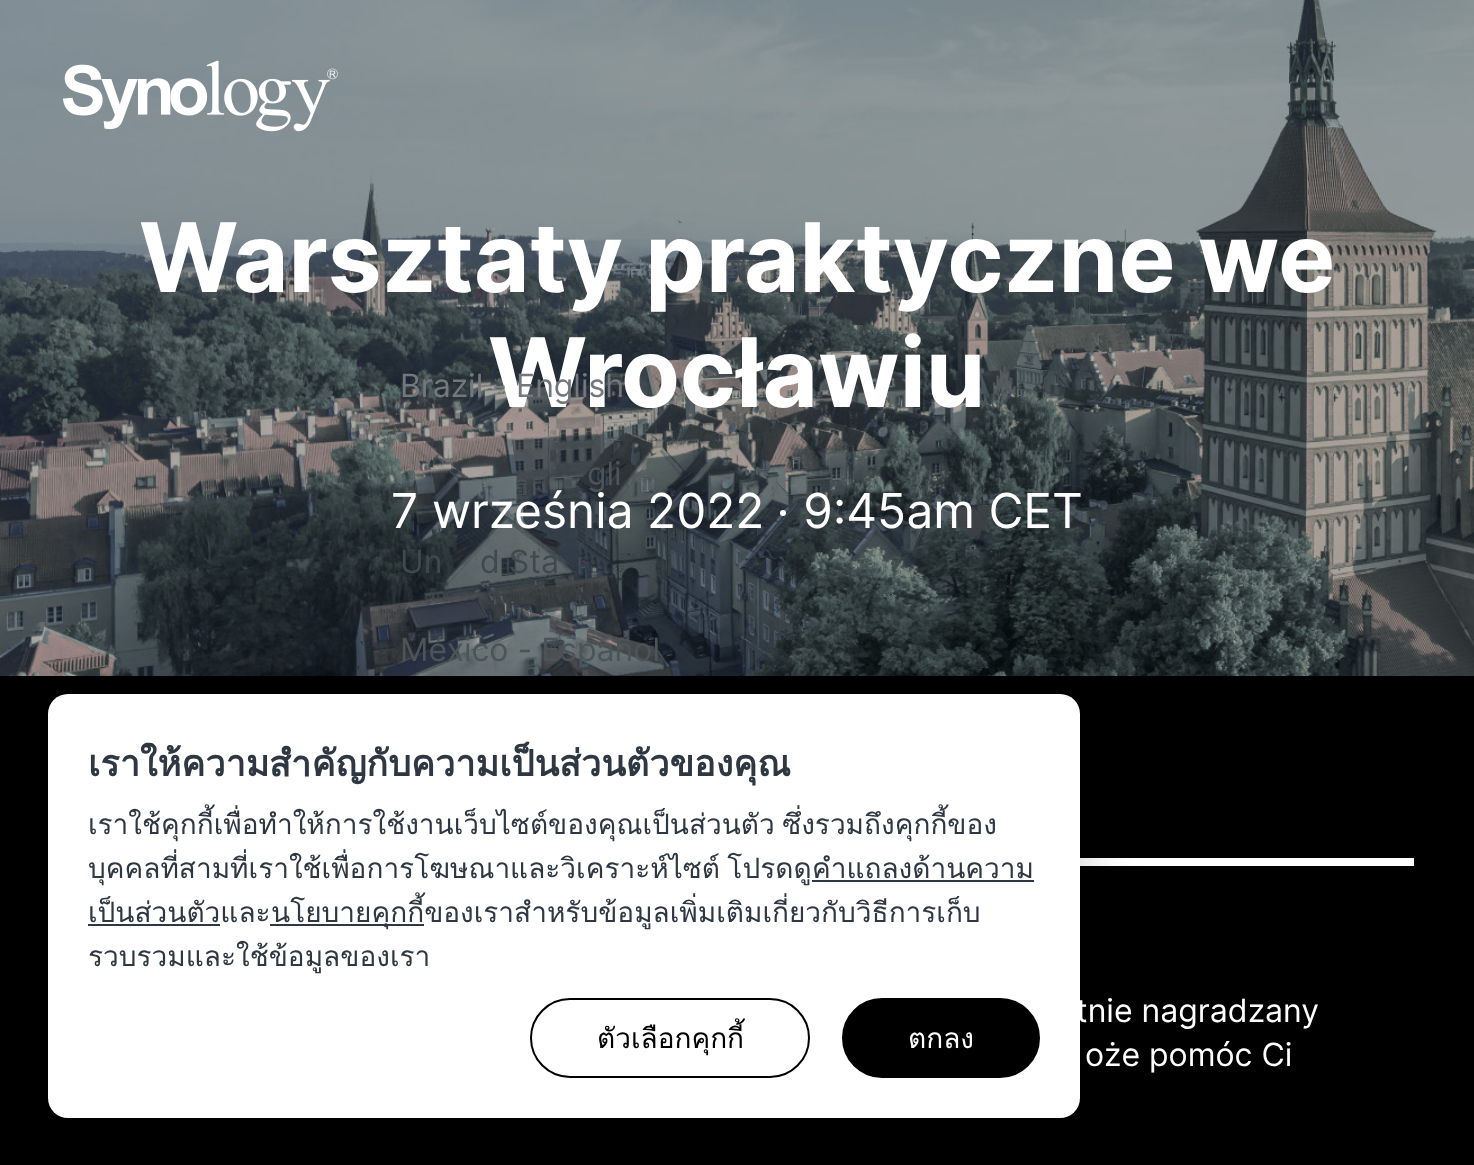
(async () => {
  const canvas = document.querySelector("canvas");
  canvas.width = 1474;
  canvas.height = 1165;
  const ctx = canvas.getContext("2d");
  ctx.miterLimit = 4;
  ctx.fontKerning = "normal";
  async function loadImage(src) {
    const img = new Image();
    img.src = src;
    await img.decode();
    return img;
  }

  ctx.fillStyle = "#000000";
  ctx.fillRect(0, 0, 1474, 1165);
  ctx.drawImage(await loadImage("img/1.png"), 0, 0, 1474, 676);
  ctx.drawImage(await loadImage("img/2.png"), 62, 60, 276, 72);
  ctx.fillStyle = "#ffffff";
  ctx.beginPath();
  ctx.arc(783, 513, 3, 0, Math.PI * 2);
  ctx.fill();
  ctx.fillRect(1080, 858, 334, 8);
  ctx.fillStyle = "rgba(0, 0, 0, 0.2)";
  ctx.filter = "blur(30px)";
  ctx.beginPath();
  ctx.roundRect(48, 694, 1032, 424, 20);
  ctx.fill();
  ctx.filter = "none";
  ctx.fillStyle = "#ffffff";
  ctx.beginPath();
  ctx.roundRect(48, 694, 1032, 424, 20);
  ctx.fill();
  for (const [x, y, w, h, color] of [
    [812, 880, 222, 2, "#2e3742"],
    [88, 924, 132, 2, "#2e3742"],
    [270, 924, 154, 2, "#2e3742"],
  ]) {
    ctx.fillStyle = color;
    ctx.fillRect(x, y, w, h);
  }
  ctx.beginPath();
  ctx.roundRect(531, 999, 278, 78, 39);
  ctx.strokeStyle = "#000000";
  ctx.lineWidth = 2;
  ctx.stroke();
  ctx.fillStyle = "#000000";
  ctx.beginPath();
  ctx.roundRect(843, 999, 196, 78, 39);
  ctx.fill();
  ctx.stroke();
  ctx.font = "bold 96px Inter";
  ctx.fillStyle = "#ffffff";
  ctx.fillText("Warsztaty praktyczne we", 139, 292);
  ctx.fillText("Wrocławiu", 488, 407);
  ctx.font = "48px Inter";
  ctx.fillText("7 września 2022", 391, 528);
  ctx.fillText("9:45am CET", 803, 528);
  ctx.font = "32px Inter";
  ctx.fillText("tnie nagradzany", 1076, 1022);
  ctx.fillText("oże pomóc Ci", 1085, 1066);
  ctx.fillStyle = "#72787c";
  ctx.fillText("Brazil - English", 400, 397);
  ctx.fillStyle = "#4d5457";
  ctx.fillText("gli", 587, 485);
  ctx.fillStyle = "#3f494f";
  ctx.fillText("Un", 400, 573);
  ctx.fillText("d Sta", 480, 573);
  ctx.fillStyle = "#4d5457";
  ctx.fillText("México - Español", 400, 661);
  ctx.font = "bold 36px Loma";
  ctx.fillStyle = "#2e3742";
  ctx.fillText("เราให้ความสำคัญกับความเป็นส่วนตัวของคุณ", 88, 776);
  ctx.wordSpacing = "-2px";
  ctx.font = "28px Loma";
  ctx.fillText("เราใช้คุกกี้เพื่อทำให้การใช้งานเว็บไซต์ของคุณเป็นส่วนตัว ซึ่งรวมถึงคุกกี้ของ", 88, 834);
  ctx.fillText("บุคคลที่สามที่เราใช้เพื่อการโฆษณาและวิเคราะห์ไซต์ โปรดดู", 88, 878);
  ctx.wordSpacing = "0px";
  for (const [text, x, y] of [
    ["คำแถลงด้านความ", 812, 878],
    ["เป็นส่วนตัวและ", 88, 922],
    ["นโยบายคุกกี้ของเราสำหรับข้อมูลเพิ่มเติมเกี่ยวกับวิธีการเก็บ", 271, 922],
    ["รวบรวมและใช้ข้อมูลของเรา", 88, 966],
  ]) {
    ctx.fillText(text, x, y);
  }
  ctx.fillStyle = "#000000";
  ctx.fillText("ตัวเลือกคุกกี้", 597, 1048);
  ctx.fillStyle = "#ffffff";
  ctx.fillText("ตกลง", 908, 1048);
})();
